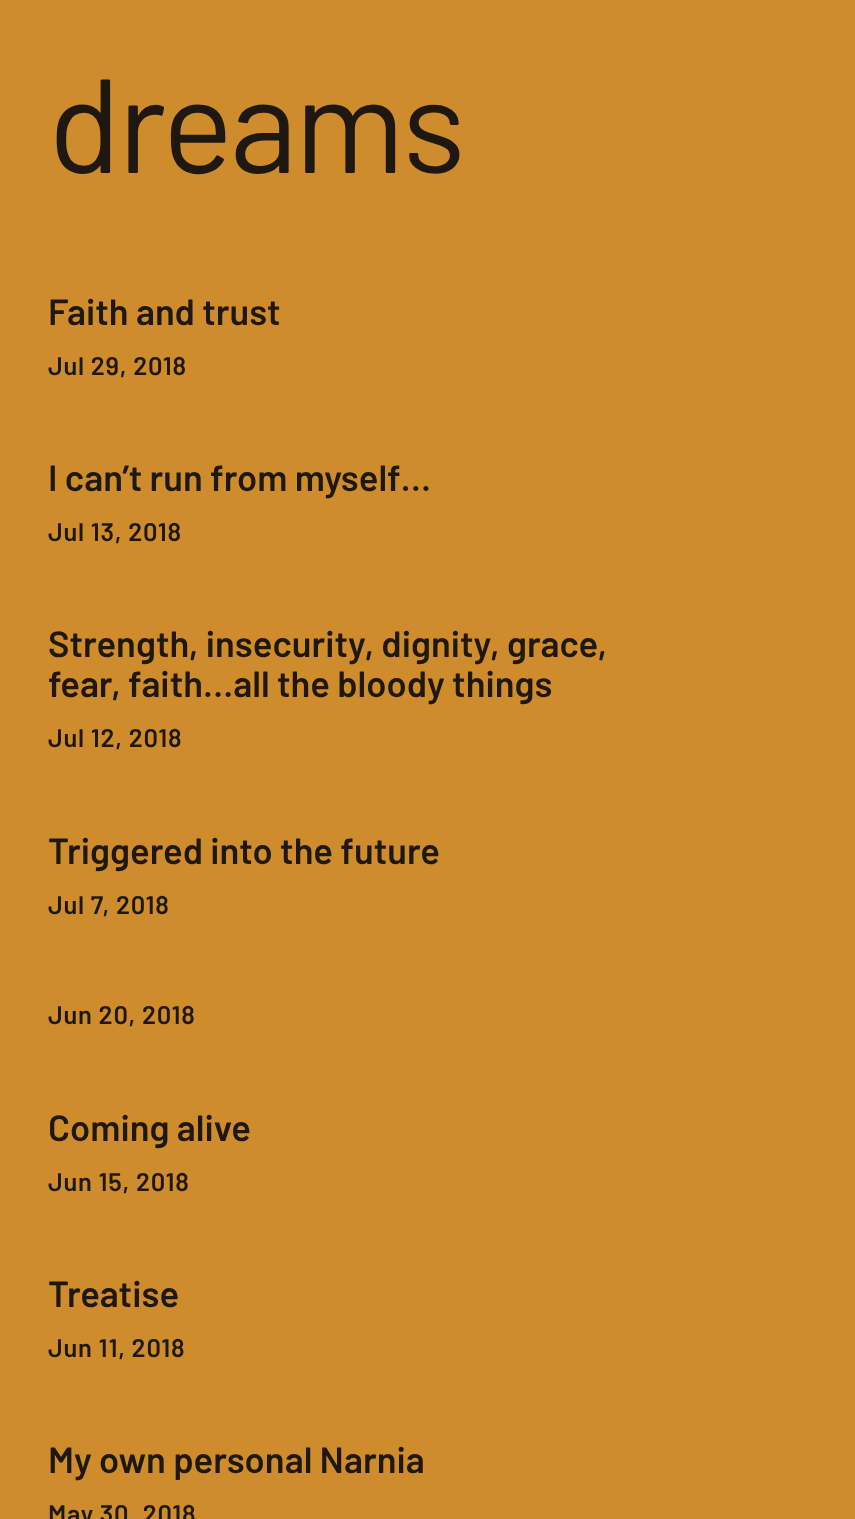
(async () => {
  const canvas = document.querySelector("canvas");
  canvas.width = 855;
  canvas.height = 1519;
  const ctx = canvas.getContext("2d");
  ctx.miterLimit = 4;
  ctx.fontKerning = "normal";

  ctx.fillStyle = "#ce8c2c";
  ctx.fillRect(0, 0, 855, 1519);
  ctx.letterSpacing = "-3.25px";
  ctx.font = "133.5px Barlow";
  ctx.fillStyle = "#1e1810";
  ctx.fillText("dreams", 48, 173);
  ctx.letterSpacing = "0px";
  ctx.font = "600 36.4px Barlow";
  ctx.fillText("Faith and trust", 48, 325);
  ctx.letterSpacing = "0.75px";
  ctx.font = "600 25.5px Barlow";
  ctx.fillText("Jul 29, 2018", 48, 375);
  ctx.letterSpacing = "0px";
  ctx.font = "600 36.4px Barlow";
  ctx.fillText("I can’t run from myself…", 48, 491);
  ctx.letterSpacing = "0.75px";
  ctx.font = "600 25.5px Barlow";
  ctx.fillText("Jul 13, 2018", 48, 541);
  ctx.letterSpacing = "0px";
  ctx.font = "600 36.4px Barlow";
  ctx.fillText("Strength, insecurity, dignity, grace,", 48, 657);
  ctx.fillText("fear, faith…all the bloody things", 48, 697);
  ctx.letterSpacing = "0.75px";
  ctx.font = "600 25.5px Barlow";
  ctx.fillText("Jul 12, 2018", 48, 747);
  ctx.letterSpacing = "0px";
  ctx.font = "600 36.4px Barlow";
  ctx.fillText("Triggered into the future", 48, 864);
  ctx.letterSpacing = "0.75px";
  ctx.font = "600 25.5px Barlow";
  ctx.fillText("Jul 7, 2018", 48, 914);
  ctx.fillText("Jun 20, 2018", 48, 1024);
  ctx.letterSpacing = "0px";
  ctx.font = "600 36.4px Barlow";
  ctx.fillText("Coming alive", 48, 1141);
  ctx.letterSpacing = "0.75px";
  ctx.font = "600 25.5px Barlow";
  ctx.fillText("Jun 15, 2018", 48, 1191);
  ctx.letterSpacing = "0px";
  ctx.font = "600 36.4px Barlow";
  ctx.fillText("Treatise", 48, 1307);
  ctx.letterSpacing = "0.75px";
  ctx.font = "600 25.5px Barlow";
  ctx.fillText("Jun 11, 2018", 48, 1357);
  ctx.letterSpacing = "0px";
  ctx.font = "600 36.4px Barlow";
  ctx.fillText("My own personal Narnia", 48, 1473);
  ctx.letterSpacing = "0.75px";
  ctx.font = "600 25.5px Barlow";
  ctx.fillText("May 30, 2018", 48, 1523);
})();
